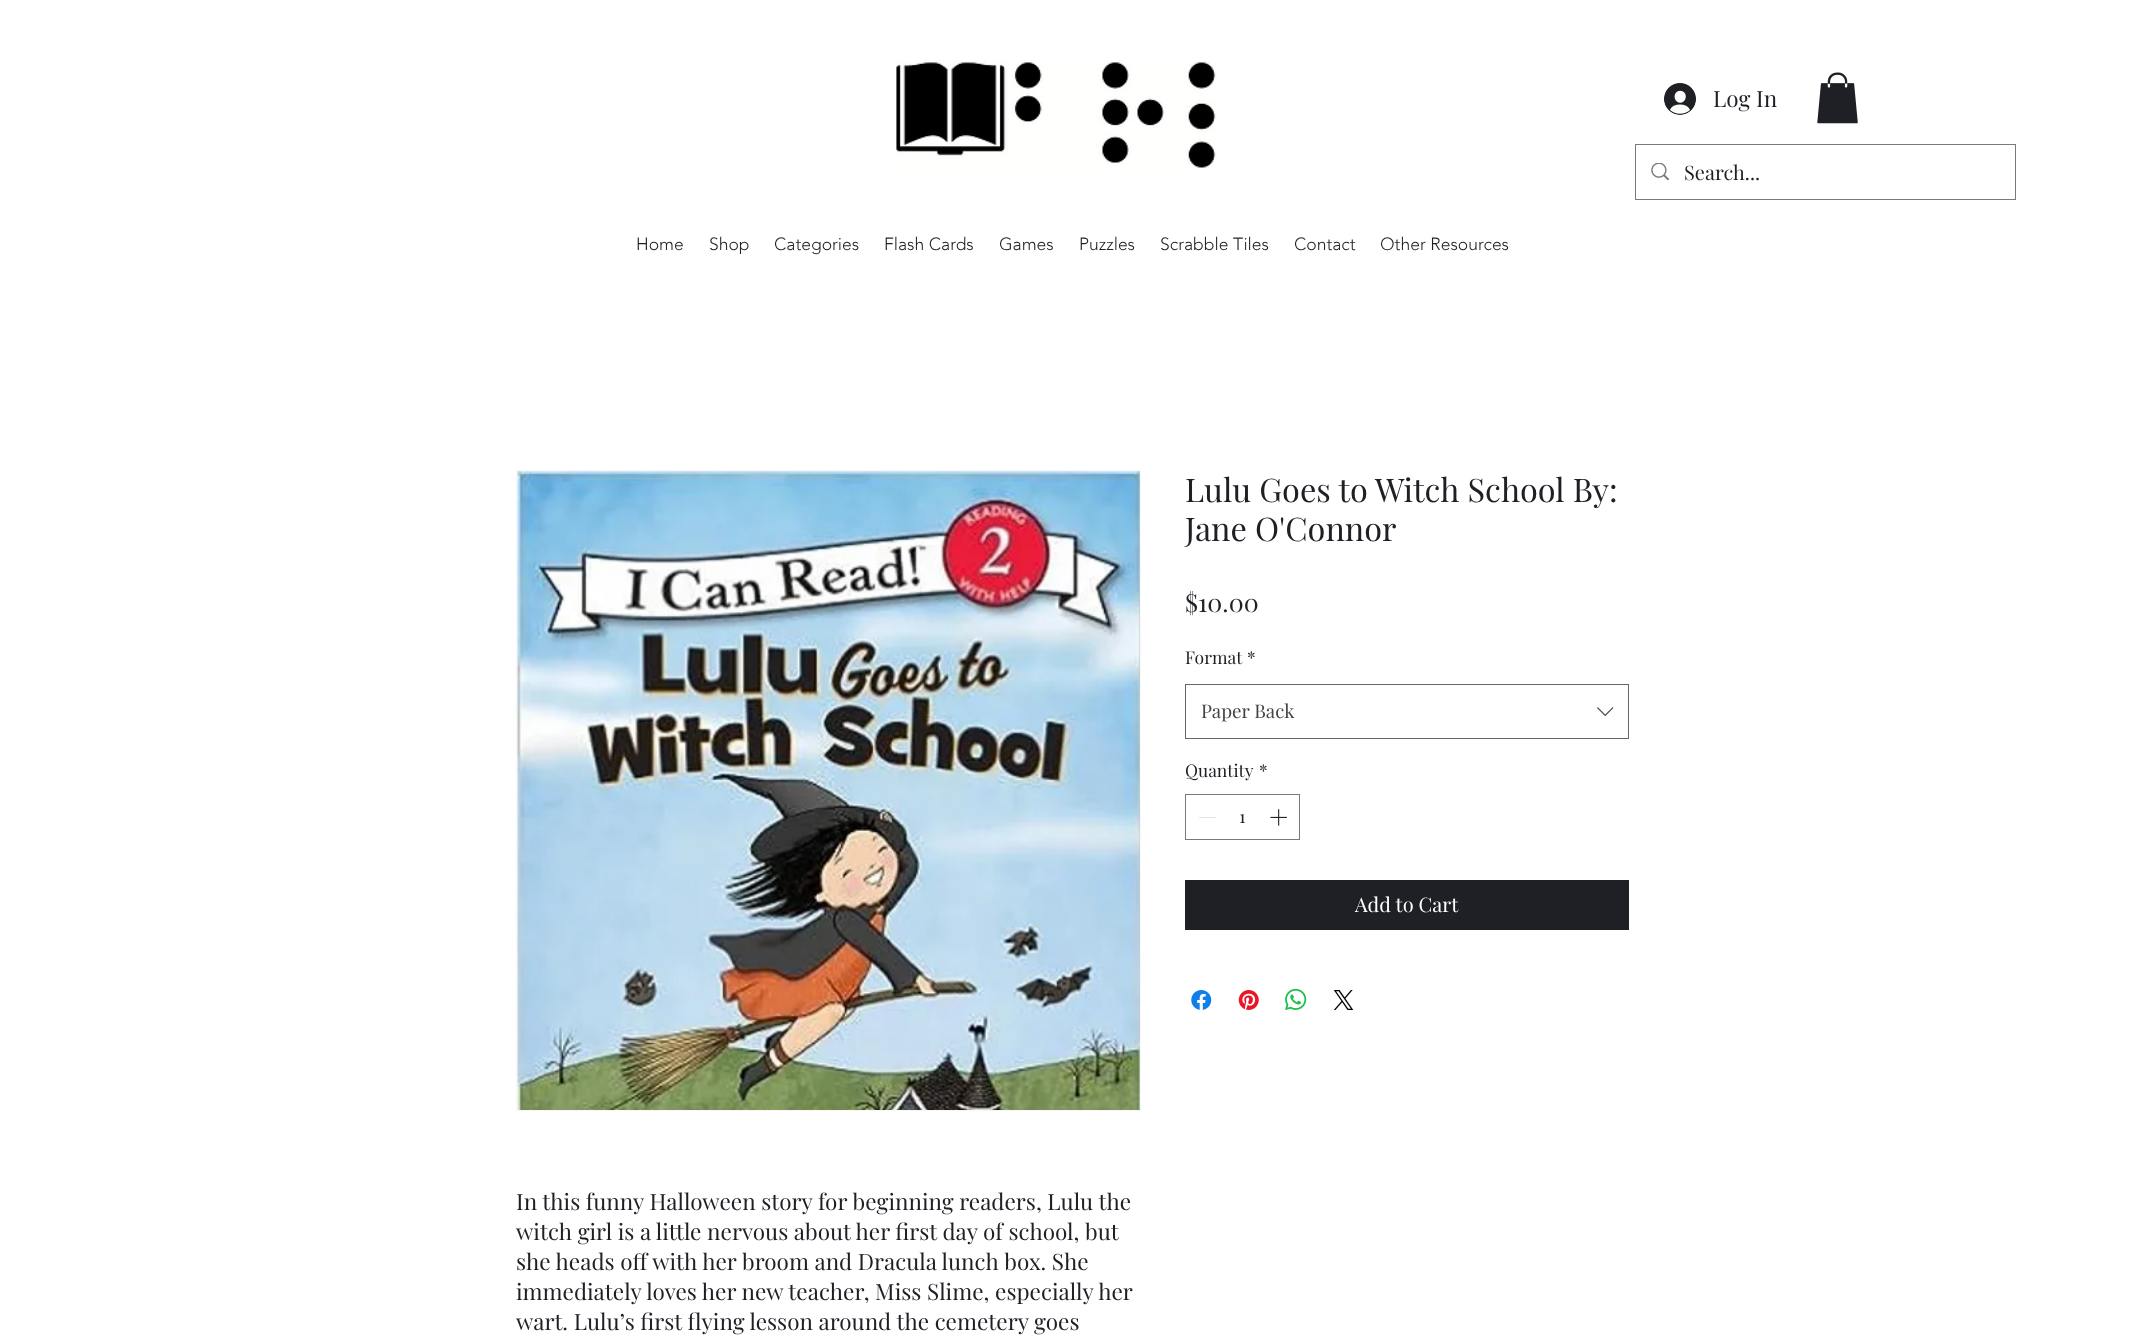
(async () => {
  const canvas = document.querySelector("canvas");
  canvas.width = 2145;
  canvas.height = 1336;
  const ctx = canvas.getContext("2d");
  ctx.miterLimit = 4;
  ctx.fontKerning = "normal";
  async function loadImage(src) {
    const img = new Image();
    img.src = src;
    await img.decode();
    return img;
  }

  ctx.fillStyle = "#ffffff";
  ctx.fillRect(0, 0, 2145, 1336);
  ctx.drawImage(await loadImage("img/1.png"), 896, 60, 321, 110);
  ctx.drawImage(await loadImage("img/2.png"), 1664, 83, 32, 32);
  ctx.drawImage(await loadImage("img/3.png"), 1817, 72, 41, 52);
  ctx.strokeStyle = "#78797c";
  ctx.strokeRect(1635.5, 144.5, 380, 55);
  ctx.drawImage(await loadImage("img/4.png"), 1651, 163, 18, 17);
  ctx.strokeStyle = "#666666";
  ctx.strokeRect(1185.5, 684.5, 443, 54);
  ctx.drawImage(await loadImage("img/5.png"), 1597, 707, 17, 10);
  ctx.strokeStyle = "#78797c";
  ctx.strokeRect(1185.5, 794.5, 114, 45);
  ctx.fillStyle = "#e3e3e3";
  ctx.fillRect(1199, 817, 17, 1);
  ctx.drawImage(await loadImage("img/6.png"), 1270, 809, 17, 17);
  ctx.fillStyle = "#1e2025";
  ctx.fillRect(1185, 880, 444, 50);
  ctx.drawImage(await loadImage("img/7.png"), 1191, 990, 21, 20);
  ctx.drawImage(await loadImage("img/8.png"), 1238, 990, 21, 20);
  ctx.drawImage(await loadImage("img/9.png"), 1285, 988, 22, 23);
  ctx.drawImage(await loadImage("img/10.png"), 1333, 990, 21, 20);
  ctx.strokeStyle = "#f7f7f7";
  ctx.strokeRect(516.5, 470.5, 624, 640);
  ctx.drawImage(await loadImage("img/11.png"), 517, 471, 623, 639);
  ctx.font = "22.5px Playfair Display";
  ctx.fillText("Log In", 1713, 107);
  ctx.font = "20px Playfair Display";
  ctx.fillText("Search...", 1684, 180);
  ctx.font = "300 17.5px 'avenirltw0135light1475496'";
  for (const [text, x, y] of [
    ["Home", 636, 250],
    ["Shop", 709, 250],
    ["Categories", 774, 250],
    ["Flash Cards", 884, 250],
    ["Games", 999, 250],
    ["Puzzles", 1079, 250],
    ["Scrabble Tiles", 1160, 250],
    ["Contact", 1294, 250],
    ["Other Resources", 1380, 250],
  ]) {
    ctx.fillText(text, x, y);
  }
  ctx.font = "32.5px Playfair Display";
  ctx.fillText("Lulu Goes to Witch School By:", 1185, 502);
  ctx.fillText("Jane O'Connor", 1185, 541);
  ctx.font = "25px Playfair Display";
  ctx.fillText("$10.00", 1185, 612);
  ctx.font = "17.5px Playfair Display";
  ctx.fillText("Format", 1185, 664);
  ctx.fillText("*", 1247, 664);
  ctx.font = "18.75px Playfair Display";
  ctx.fillStyle = "#444444";
  ctx.fillText("Paper Back", 1201, 718);
  ctx.font = "17.5px Playfair Display";
  ctx.fillStyle = "#1e2025";
  for (const [text, x, y] of [
    ["Quantity", 1185, 777],
    ["*", 1259, 777],
    ["1", 1239, 823],
  ]) {
    ctx.fillText(text, x, y);
  }
  ctx.font = "20px Playfair Display";
  ctx.fillStyle = "#ffffff";
  ctx.fillText("Add to Cart", 1355, 912);
  ctx.font = "22.5px Playfair Display";
  ctx.fillStyle = "#1e2025";
  for (const [text, x, y] of [
    ["In this funny Halloween story for beginning readers, Lulu the", 516, 1210],
    ["witch girl is a little nervous about her first day of school, but", 516, 1240],
    ["she heads off with her broom and Dracula lunch box. She", 516, 1270],
    ["immediately loves her new teacher, Miss Slime, especially her", 516, 1300],
    ["wart. Lulu’s first flying lesson around the cemetery goes", 516, 1330],
  ]) {
    ctx.fillText(text, x, y);
  }
})();
